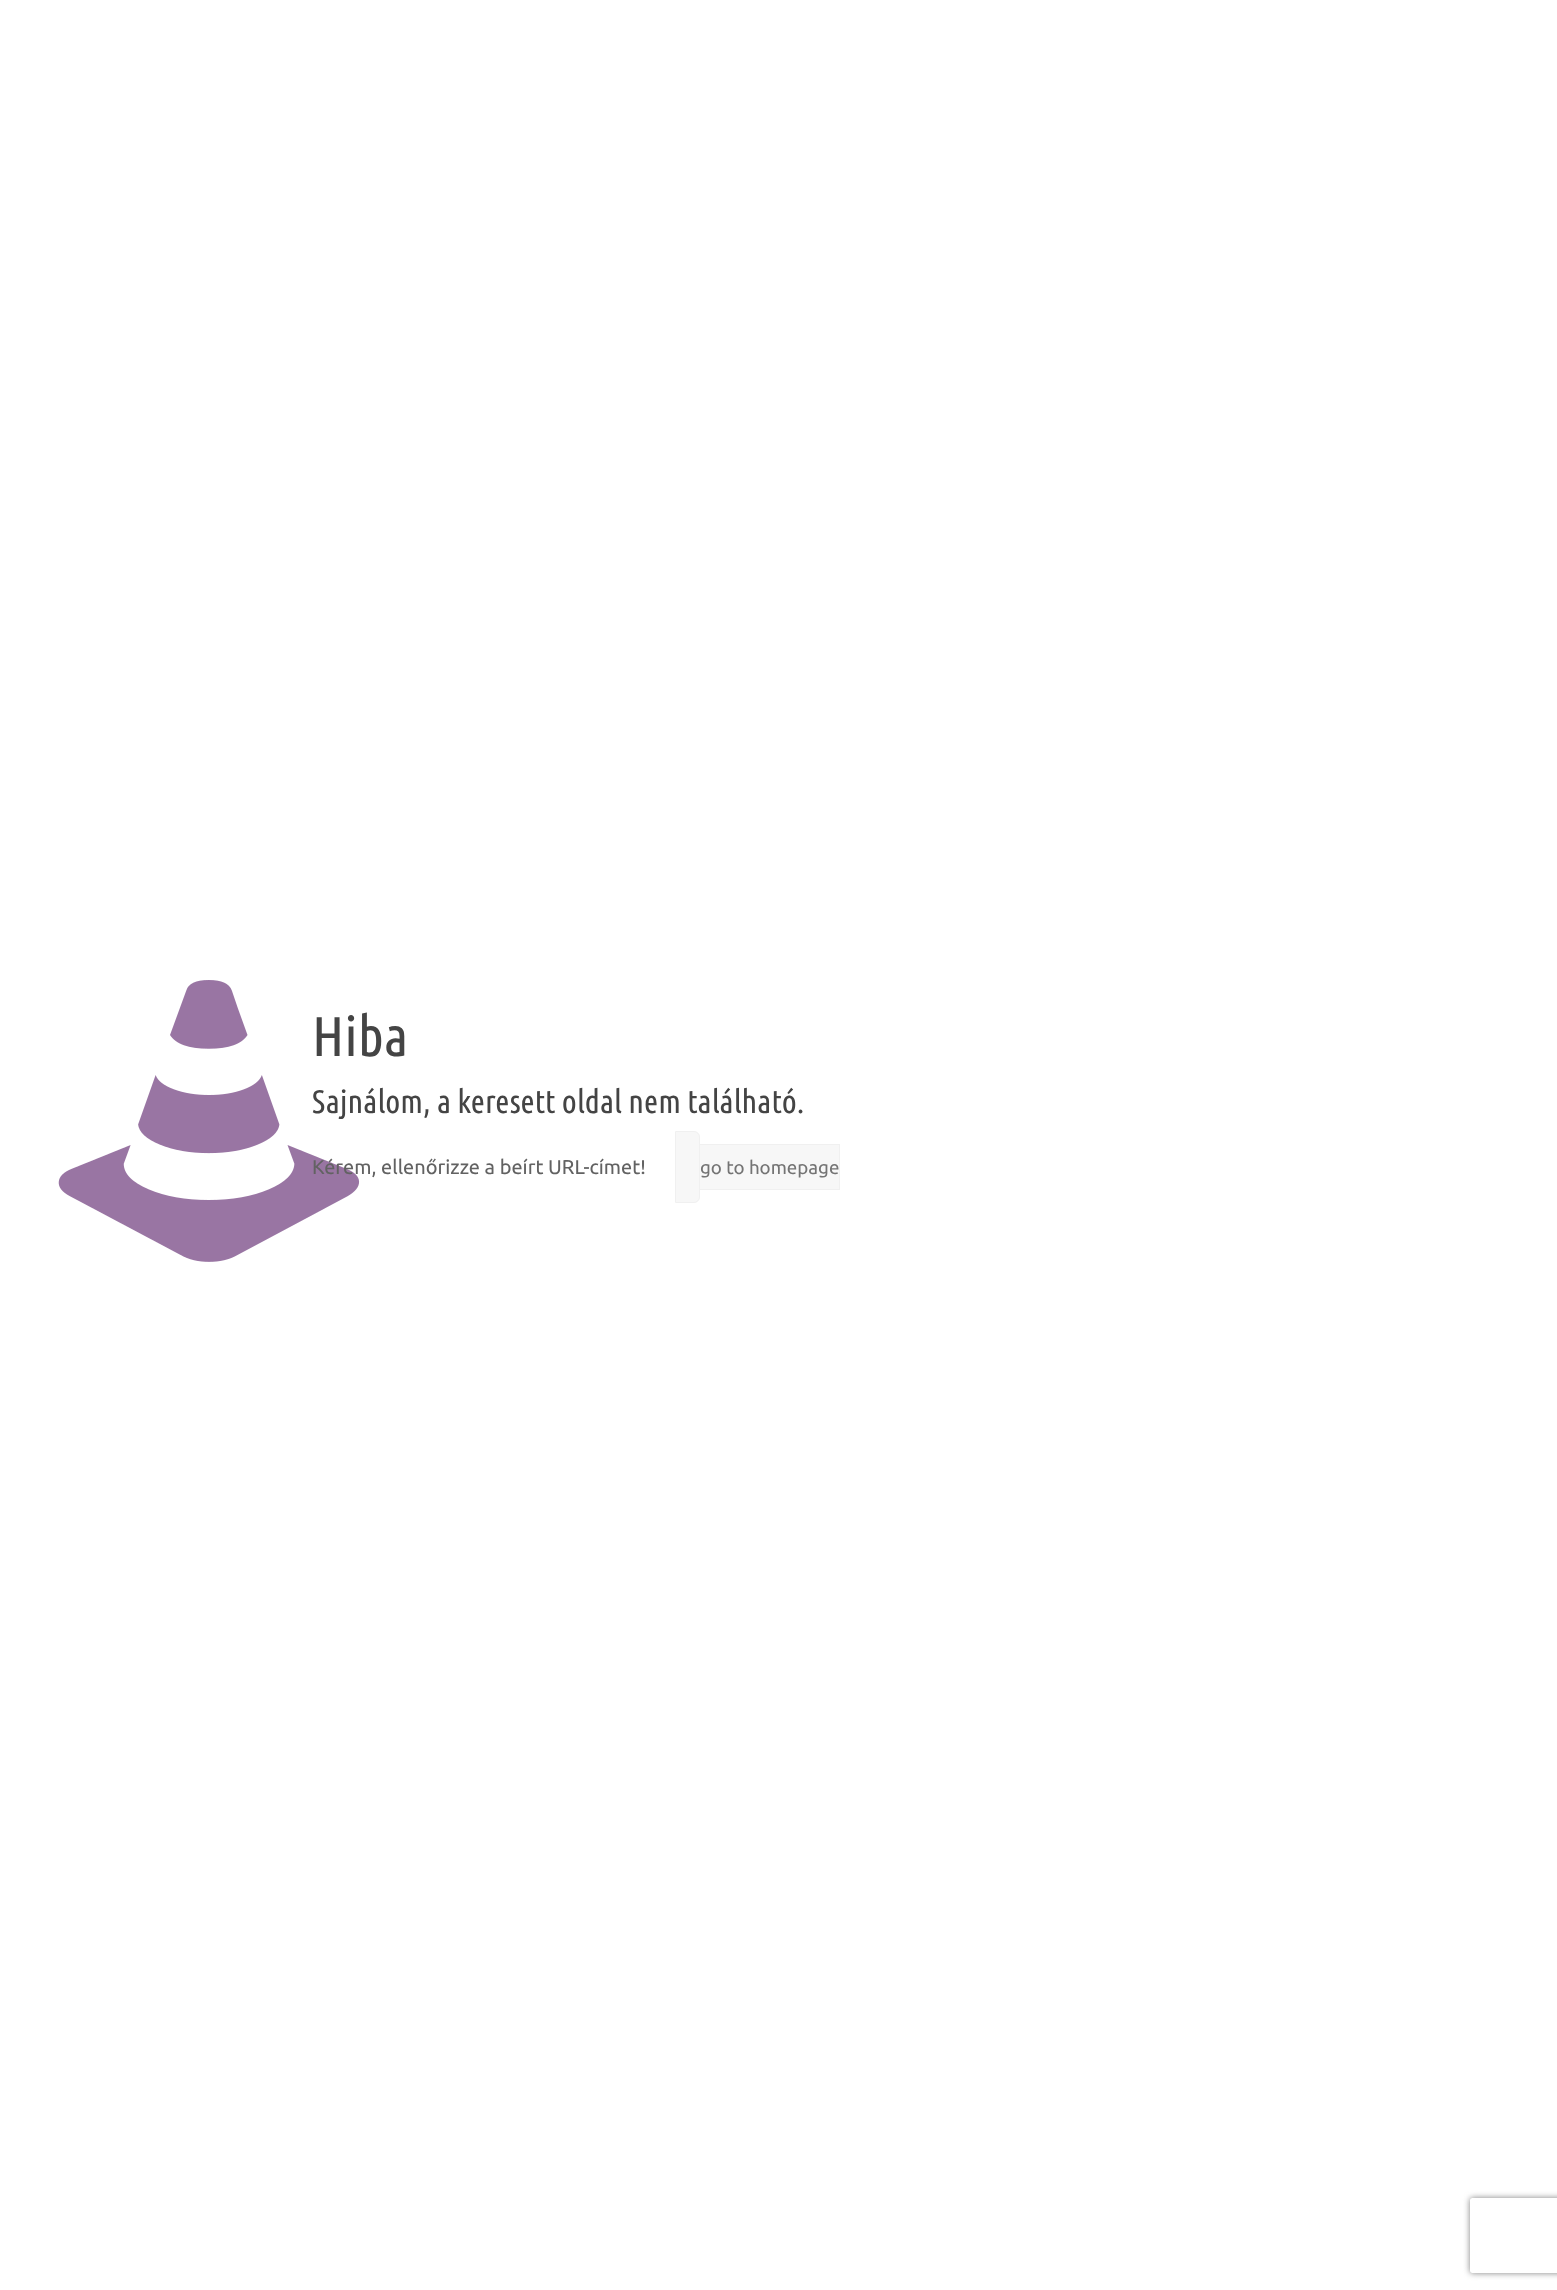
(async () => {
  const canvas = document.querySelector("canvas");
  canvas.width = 1557;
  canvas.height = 2290;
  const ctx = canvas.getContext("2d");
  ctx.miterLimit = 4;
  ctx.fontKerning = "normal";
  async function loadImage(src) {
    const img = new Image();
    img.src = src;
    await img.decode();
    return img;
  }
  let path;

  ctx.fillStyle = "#ffffff";
  ctx.fillRect(0, 0, 1557, 2290);
  ctx.drawImage(await loadImage("img/1.png"), 58, 980, 302, 282);
  ctx.fillStyle = "#f7f7f7";
  ctx.fillRect(700, 1145, 139, 44);
  ctx.strokeStyle = "#f0f0f0";
  ctx.strokeRect(675.5, 1144.5, 164, 45);
  ctx.beginPath();
  ctx.roundRect(675.5, 1131.5, 24, 71, [0, 5.5, 5.5, 0]);
  ctx.fill();
  ctx.stroke();
  ctx.save();
  path = new Path2D("M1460 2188H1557V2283H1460ZM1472.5 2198H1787.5C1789 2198 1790 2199 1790 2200.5V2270.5C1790 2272 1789 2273 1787.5 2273H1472.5C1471 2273 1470 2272 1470 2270.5V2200.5C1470 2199 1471 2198 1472.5 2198Z");
  ctx.clip(path, "evenodd");
  ctx.fillStyle = "#808080";
  ctx.filter = "blur(3px)";
  ctx.beginPath();
  ctx.roundRect(1470, 2198, 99, 75, 2.5);
  ctx.fill();
  ctx.filter = "none";
  ctx.restore();
  ctx.font = "56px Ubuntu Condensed";
  ctx.fillStyle = "#444444";
  ctx.fillText("Hiba", 312, 1056);
  ctx.font = "32.5px Ubuntu Condensed";
  ctx.fillText("Sajnálom, a keresett oldal nem található.", 312, 1113);
  ctx.font = "20px Ubuntu";
  ctx.fillStyle = "#626262";
  ctx.fillText("Kérem, ellenőrizze a beírt URL-címet!", 312, 1174);
  ctx.font = "18.75px Ubuntu";
  ctx.fillStyle = "#747474";
  ctx.fillText("go to homepage", 700, 1174);
})();
